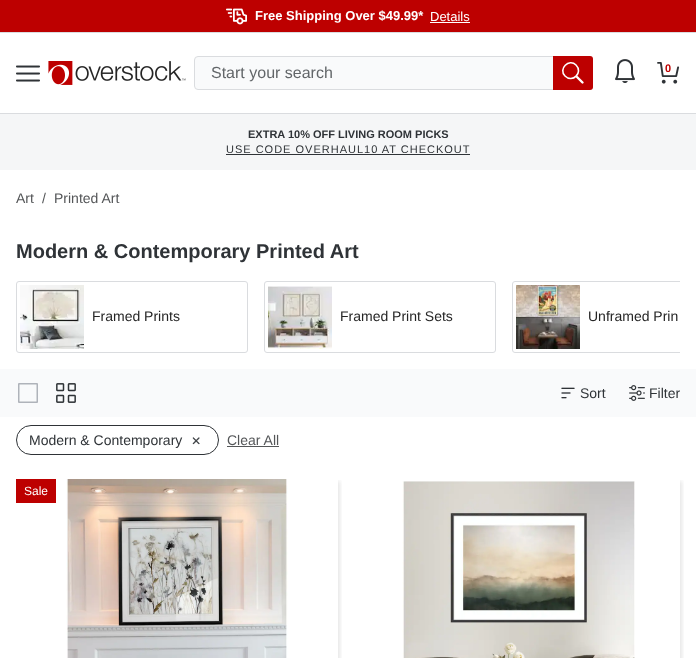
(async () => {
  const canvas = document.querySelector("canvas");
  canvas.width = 696;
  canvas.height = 658;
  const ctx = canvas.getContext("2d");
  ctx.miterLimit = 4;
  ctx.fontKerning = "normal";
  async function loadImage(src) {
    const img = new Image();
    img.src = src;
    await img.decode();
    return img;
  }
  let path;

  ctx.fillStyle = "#ffffff";
  ctx.fillRect(0, 0, 696, 658);
  ctx.fillStyle = "#bd0000";
  ctx.fillRect(0, 0, 696, 32);
  ctx.drawImage(await loadImage("img/1.png"), 226, 8, 21, 17);
  for (const [x, y, w, h, color] of [
    [430, 22, 40, 1, "#ffffff"],
    [0, 32, 696, 1, "#dadcdf"],
    [0, 113, 696, 1, "#dadcdf"],
  ]) {
    ctx.fillStyle = color;
    ctx.fillRect(x, y, w, h);
  }
  ctx.drawImage(await loadImage("img/2.png"), 16, 65, 24, 17);
  ctx.drawImage(await loadImage("img/3.png"), 48, 61, 138, 24);
  ctx.fillStyle = "#f9fafb";
  ctx.beginPath();
  ctx.roundRect(194.5, 56.5, 398, 33, 3.5);
  ctx.fill();
  ctx.strokeStyle = "#dadcdf";
  ctx.stroke();
  ctx.fillStyle = "#bd0000";
  ctx.beginPath();
  ctx.roundRect(553, 56, 40, 34, [0, 3, 3, 0]);
  ctx.fill();
  path = new Path2D("M582.5 82.5L577 77");
  ctx.strokeStyle = "#ffffff";
  ctx.lineWidth = 2.4;
  ctx.lineCap = "round";
  ctx.stroke(path);
  path = new Path2D("M576 65C583.5 72.5 572.5 83.5 565 76C558 69 569 58 576 65Z");
  ctx.lineWidth = 1.6;
  ctx.lineCap = "butt";
  ctx.stroke(path);
  ctx.drawImage(await loadImage("img/4.png"), 615, 59, 20, 24);
  ctx.drawImage(await loadImage("img/5.png"), 657, 62, 23, 22);
  ctx.fillStyle = "#f5f6f7";
  ctx.fillRect(0, 114, 696, 56);
  ctx.fillStyle = "#2f3337";
  ctx.fillRect(226, 154, 244, 1);
  ctx.beginPath();
  ctx.roundRect(16.5, 281.5, 231, 71, 2.5);
  ctx.strokeStyle = "#dadcdf";
  ctx.lineWidth = 1;
  ctx.stroke();
  ctx.drawImage(await loadImage("img/6.png"), 20, 285, 64, 64);
  ctx.beginPath();
  ctx.roundRect(264.5, 281.5, 231, 71, 2.5);
  ctx.stroke();
  ctx.drawImage(await loadImage("img/7.png"), 268, 286, 64, 63);
  ctx.save();
  ctx.beginPath();
  ctx.rect(16, 281, 664, 72);
  ctx.clip();
  ctx.beginPath();
  ctx.roundRect(512.5, 281.5, 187, 71, 2.5);
  ctx.stroke();
  ctx.restore();
  ctx.drawImage(await loadImage("img/8.png"), 516, 285, 64, 64);
  ctx.fillStyle = "#f9fafb";
  ctx.fillRect(0, 369, 696, 48);
  ctx.drawImage(await loadImage("img/9.png"), 18, 383, 20, 20);
  ctx.drawImage(await loadImage("img/10.png"), 56, 383, 20, 20);
  ctx.drawImage(await loadImage("img/11.png"), 561, 387, 14, 12);
  ctx.drawImage(await loadImage("img/12.png"), 629, 385, 16, 16);
  ctx.beginPath();
  ctx.roundRect(16.5, 425.5, 202, 29, 14.5);
  ctx.strokeStyle = "#2f3337";
  ctx.stroke();
  ctx.drawImage(await loadImage("img/13.png"), 192, 437, 8, 8);
  ctx.fillStyle = "#545658";
  ctx.fillRect(227, 446, 52, 1);
  ctx.save();
  ctx.beginPath();
  ctx.rect(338, 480, 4, 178);
  ctx.clip();
  ctx.fillStyle = "rgba(0, 0, 0, 0.1)";
  ctx.filter = "blur(2px)";
  ctx.beginPath();
  ctx.rect(18, 481, 322, 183);
  ctx.fill();
  ctx.filter = "none";
  ctx.restore();
  ctx.fillStyle = "#bd0000";
  ctx.fillRect(16, 479, 40, 24);
  ctx.drawImage(await loadImage("img/14.png"), 66, 479, 222, 179);
  ctx.save();
  ctx.beginPath();
  ctx.rect(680, 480, 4, 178);
  ctx.clip();
  ctx.fillStyle = "rgba(0, 0, 0, 0.1)";
  ctx.filter = "blur(2px)";
  ctx.beginPath();
  ctx.rect(360, 481, 322, 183);
  ctx.fill();
  ctx.filter = "none";
  ctx.restore();
  ctx.drawImage(await loadImage("img/15.png"), 402, 481, 233, 177);
  ctx.font = "bold 13px Liberation Sans";
  ctx.fillStyle = "#ffffff";
  ctx.fillText("Free Shipping Over $49.99*", 255, 20);
  ctx.font = "13px Liberation Sans";
  ctx.fillText("Details", 430, 21);
  ctx.font = "16px Liberation Sans";
  ctx.fillStyle = "#626669";
  ctx.fillText("Start your search", 211, 78);
  ctx.font = "bold 11px Liberation Sans";
  ctx.fillStyle = "#bd0000";
  ctx.fillText("0", 665, 72);
  ctx.fillStyle = "#2f3337";
  ctx.fillText("EXTRA 10% OFF LIVING ROOM PICKS", 248, 138);
  ctx.letterSpacing = "1px";
  ctx.font = "11px Liberation Sans";
  ctx.fillText("USE CODE OVERHAUL10 AT CHECKOUT", 226, 153);
  ctx.letterSpacing = "0px";
  ctx.font = "14px Liberation Sans";
  ctx.fillStyle = "#545658";
  for (const [text, x, y] of [
    ["Art", 16, 203],
    ["/", 42, 203],
    ["Printed Art", 54, 203],
  ]) {
    ctx.fillText(text, x, y);
  }
  ctx.font = "bold 20px Liberation Sans";
  ctx.fillStyle = "#2f3337";
  ctx.fillText("Modern & Contemporary Printed Art", 16, 258);
  ctx.font = "14px Liberation Sans";
  ctx.fillStyle = "#252525";
  for (const [text, x, y] of [
    ["Framed Prints", 92, 321],
    ["Framed Print Sets", 340, 321],
    ["Unframed Prin", 588, 321],
  ]) {
    ctx.fillText(text, x, y);
  }
  ctx.fillStyle = "#2f3337";
  for (const [text, x, y] of [
    ["Sort", 580, 398],
    ["Filter", 649, 398],
    ["Modern & Contemporary", 29, 445],
  ]) {
    ctx.fillText(text, x, y);
  }
  ctx.fillStyle = "#545658";
  ctx.fillText("Clear All", 227, 445);
  ctx.font = "12px Liberation Sans";
  ctx.fillStyle = "#ffffff";
  ctx.fillText("Sale", 24, 495);
})();
